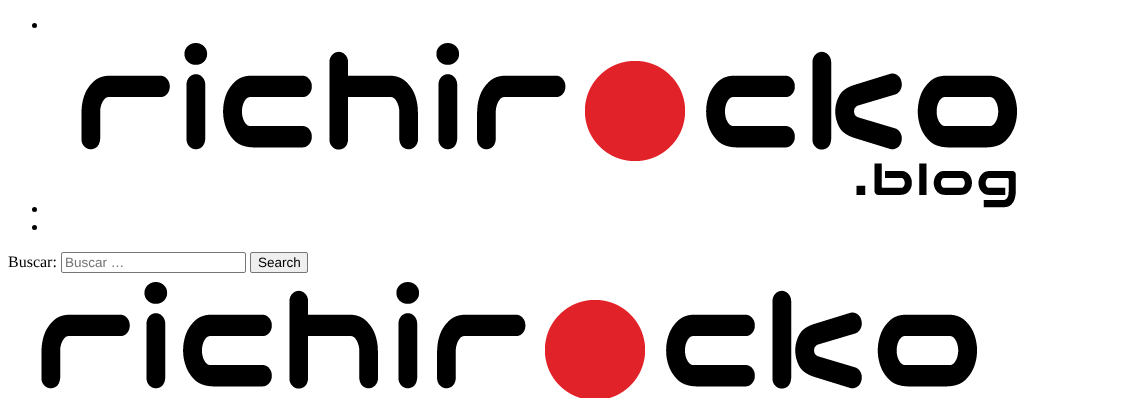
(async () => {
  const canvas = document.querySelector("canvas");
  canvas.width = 1135;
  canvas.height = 398;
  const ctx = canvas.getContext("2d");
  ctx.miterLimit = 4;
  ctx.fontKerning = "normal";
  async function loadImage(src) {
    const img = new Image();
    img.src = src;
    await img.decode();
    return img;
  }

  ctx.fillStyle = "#ffffff";
  ctx.fillRect(0, 0, 1135, 398);
  ctx.fillStyle = "#000000";
  ctx.beginPath();
  ctx.arc(34.5, 25.5, 2.5, 0, Math.PI * 2);
  ctx.fill();
  ctx.drawImage(await loadImage("img/1.png"), 81, 43, 936, 165);
  ctx.beginPath();
  ctx.arc(34.5, 209.5, 2.5, 0, Math.PI * 2);
  ctx.fill();
  ctx.beginPath();
  ctx.arc(34.5, 227.5, 2.5, 0, Math.PI * 2);
  ctx.fill();
  ctx.beginPath();
  ctx.roundRect(61.5, 252.5, 184, 20, 1.5);
  ctx.strokeStyle = "#767676";
  ctx.stroke();
  ctx.fillStyle = "#efefef";
  ctx.beginPath();
  ctx.roundRect(250.5, 252.5, 57, 20, 1.5);
  ctx.fill();
  ctx.stroke();
  ctx.drawImage(await loadImage("img/2.png"), 41, 282, 936, 116);
  ctx.font = "16px Liberation Serif";
  ctx.fillStyle = "#000000";
  ctx.fillText("Buscar:", 8, 267);
  ctx.font = "13.5px Liberation Sans";
  ctx.fillStyle = "#757575";
  ctx.fillText("Buscar …", 65, 267);
  ctx.fillStyle = "#000000";
  ctx.fillText("Search", 258, 267);
})();
